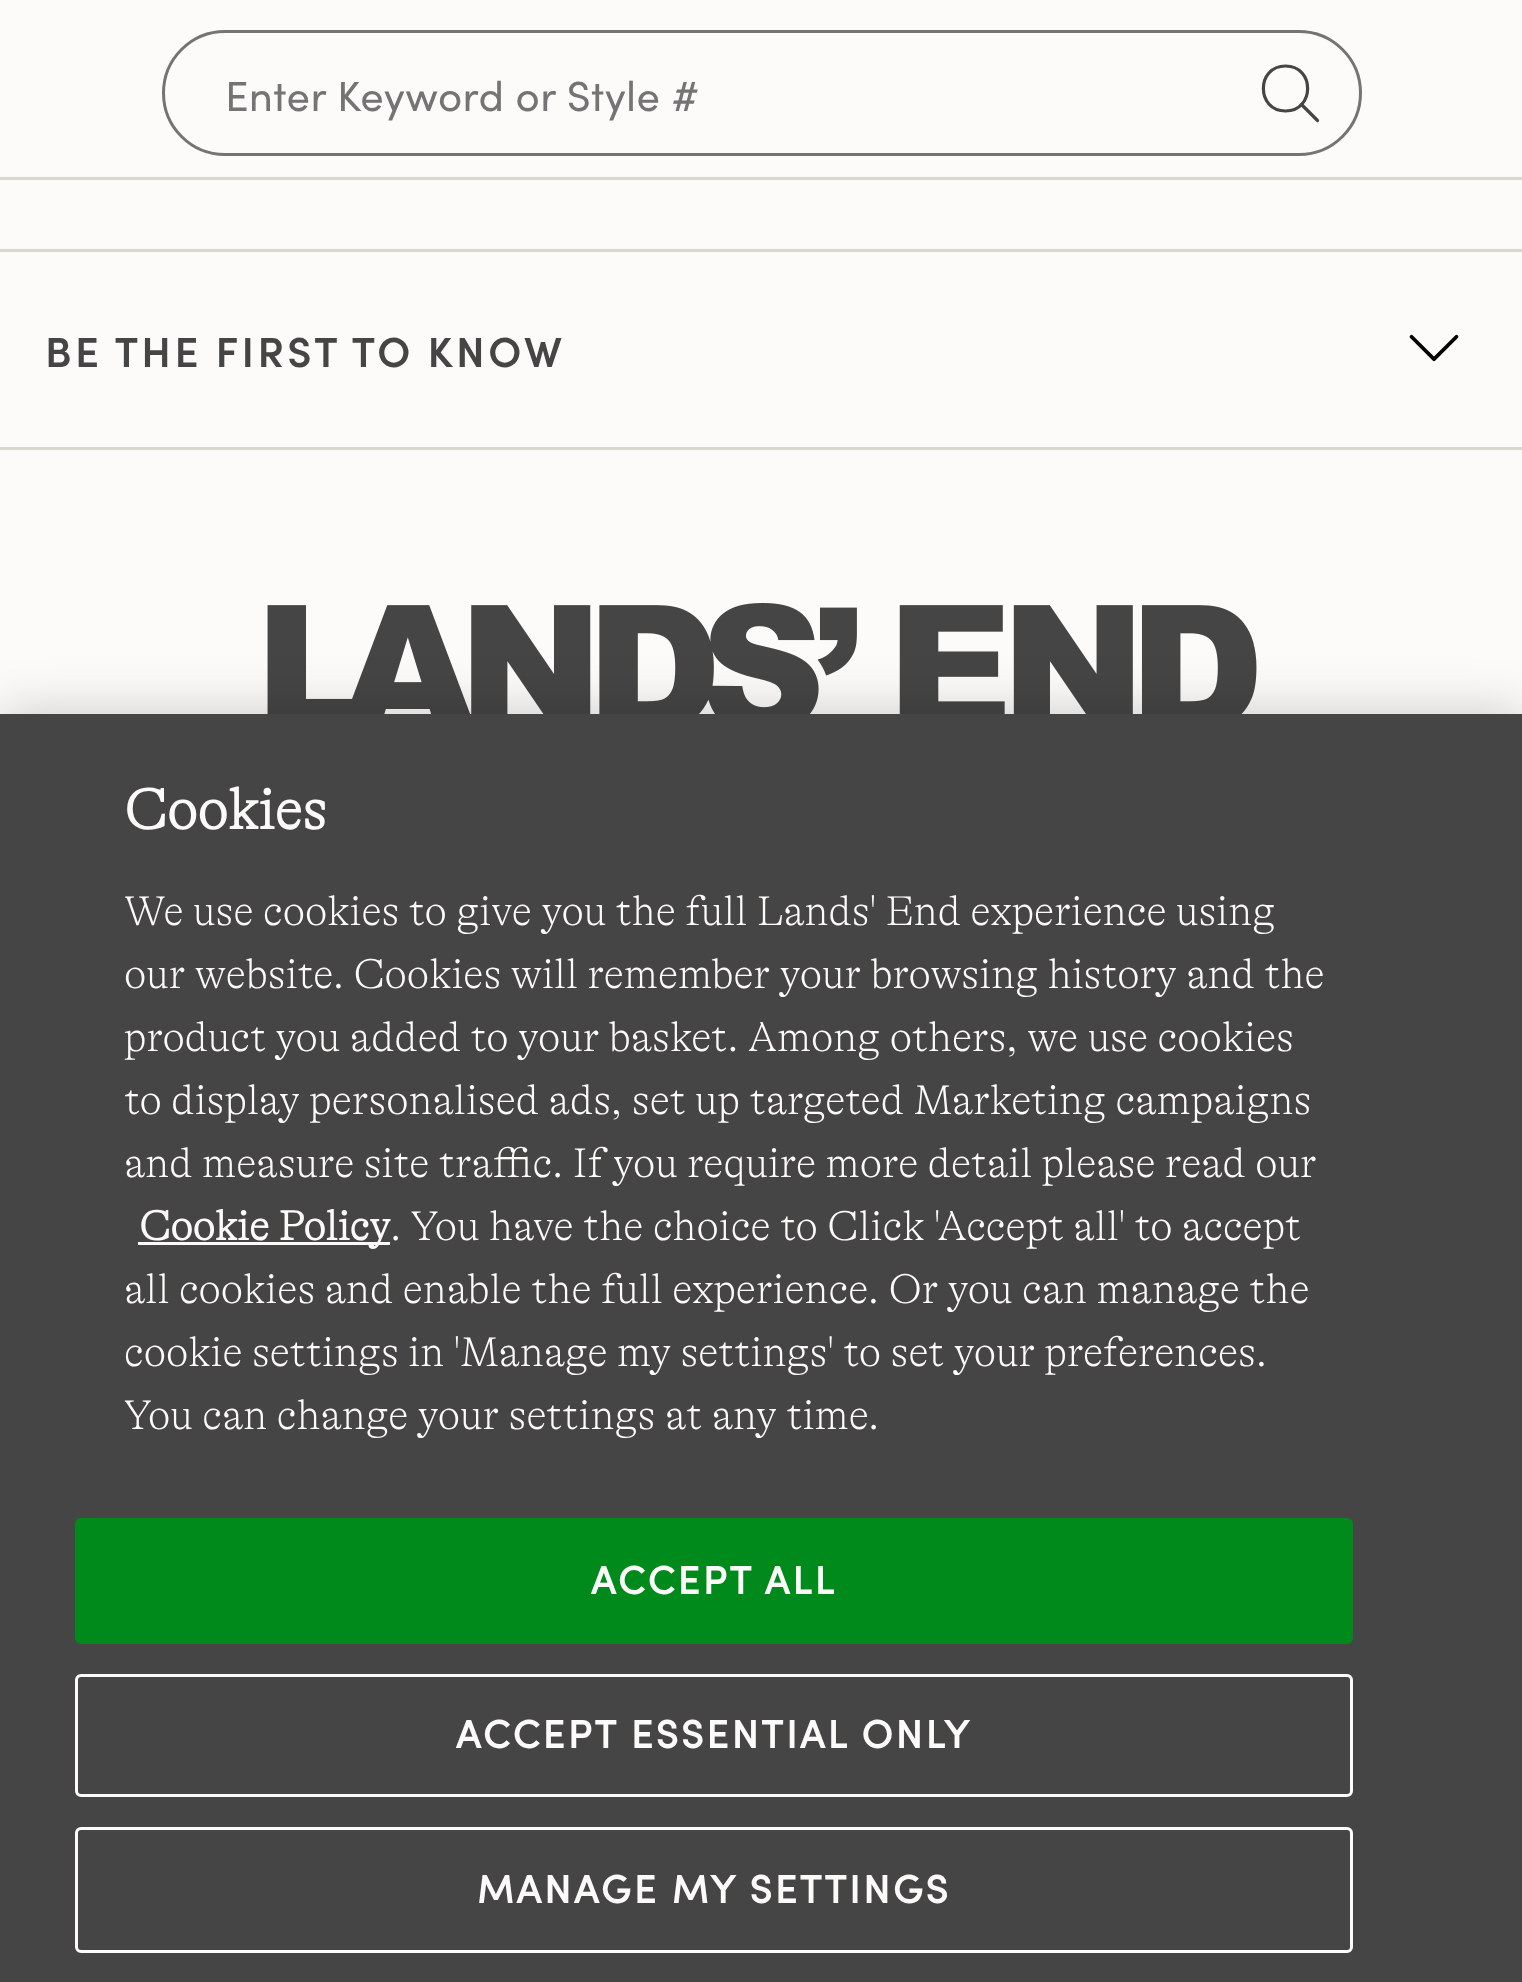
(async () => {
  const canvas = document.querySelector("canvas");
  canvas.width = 1522;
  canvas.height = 1982;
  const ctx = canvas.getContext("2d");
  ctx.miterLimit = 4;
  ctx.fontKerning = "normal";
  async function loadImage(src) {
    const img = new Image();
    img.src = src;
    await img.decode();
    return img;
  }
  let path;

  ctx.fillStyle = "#fdfbf9";
  ctx.fillRect(0, 0, 1522, 1982);
  ctx.fillStyle = "#dad7cf";
  ctx.fillRect(0, 177, 1522, 3);
  ctx.beginPath();
  ctx.roundRect(163.5, 31.5, 1197, 123, 61.5);
  ctx.strokeStyle = "#747474";
  ctx.lineWidth = 3;
  ctx.stroke();
  path = new Path2D("M1285.5 111C1315 111 1315 66 1285.5 66C1256 66 1256 111 1285.5 111Z");
  ctx.strokeStyle = "#454545";
  ctx.lineWidth = 3.2;
  ctx.stroke(path);
  path = new Path2D("M1301.5 104.5L1317.5 120.5");
  ctx.lineCap = "round";
  ctx.stroke(path);
  ctx.fillRect(0, 249, 1522, 3);
  ctx.fillRect(0, 447, 1522, 3);
  ctx.drawImage(await loadImage("img/1.png"), 1409, 334, 50, 28);
  ctx.drawImage(await loadImage("img/2.png"), 267, 603, 990, 111);
  ctx.fillStyle = "rgba(0, 0, 0, 0.2)";
  ctx.filter = "blur(27px)";
  ctx.beginPath();
  ctx.rect(0, 714, 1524, 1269);
  ctx.fill();
  ctx.filter = "none";
  ctx.fillStyle = "#454545";
  ctx.fillRect(0, 714, 1522, 1268);
  ctx.fillStyle = "#fdfbf9";
  ctx.fillRect(138, 1242, 252, 3);
  ctx.fillStyle = "#008a1c";
  ctx.beginPath();
  ctx.roundRect(76.5, 1519.5, 1275, 123, 4.5);
  ctx.fill();
  ctx.strokeStyle = "#008a1c";
  ctx.lineWidth = 3;
  ctx.stroke();
  ctx.beginPath();
  ctx.roundRect(76.5, 1675.5, 1275, 120, 4.5);
  ctx.strokeStyle = "#fdfbf9";
  ctx.stroke();
  ctx.beginPath();
  ctx.roundRect(76.5, 1828.5, 1275, 123, 4.5);
  ctx.stroke();
  ctx.letterSpacing = "0.4px";
  ctx.font = "42px Sofia";
  ctx.fillStyle = "#747474";
  ctx.fillText("Enter Keyword or Style #", 225, 111);
  ctx.letterSpacing = "3.4px";
  ctx.font = "bold 42px Sofia";
  ctx.fillStyle = "#454545";
  ctx.fillText("BE THE FIRST TO KNOW", 45, 367);
  ctx.letterSpacing = "0px";
  ctx.font = "bold 57.5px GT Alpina";
  ctx.fillStyle = "#fdfbf9";
  ctx.fillText("Cookies", 124, 829);
  ctx.font = "100 42px GT Alpina";
  for (const [text, x, y] of [
    ["We use cookies to give you the full Lands' End experience using", 124, 925],
    ["our website. Cookies will remember your browsing history and the", 124, 988],
    ["product you added to your basket. Among others, we use cookies", 124, 1051],
    ["to display personalised ads, set up targeted Marketing campaigns", 124, 1114],
    ["and measure site traffic. If you require more detail please read our", 124, 1177],
  ]) {
    ctx.fillText(text, x, y);
  }
  ctx.font = "bold 42px GT Alpina";
  ctx.fillText("Cookie Policy", 139, 1240);
  ctx.font = "100 42px GT Alpina";
  for (const [text, x, y] of [
    [". You have the choice to Click 'Accept all' to accept", 390, 1240],
    ["all cookies and enable the full experience. Or you can manage the", 124, 1303],
    ["cookie settings in 'Manage my settings' to set your preferences.", 124, 1366],
    ["You can change your settings at any time.", 124, 1429],
  ]) {
    ctx.fillText(text, x, y);
  }
  ctx.letterSpacing = "3.1px";
  ctx.font = "bold 39px 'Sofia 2'";
  for (const [text, x, y] of [
    ["ACCEPT ALL", 591, 1594],
    ["ACCEPT ESSENTIAL ONLY", 456, 1748],
    ["MANAGE MY SETTINGS", 477, 1903],
  ]) {
    ctx.fillText(text, x, y);
  }
})();
